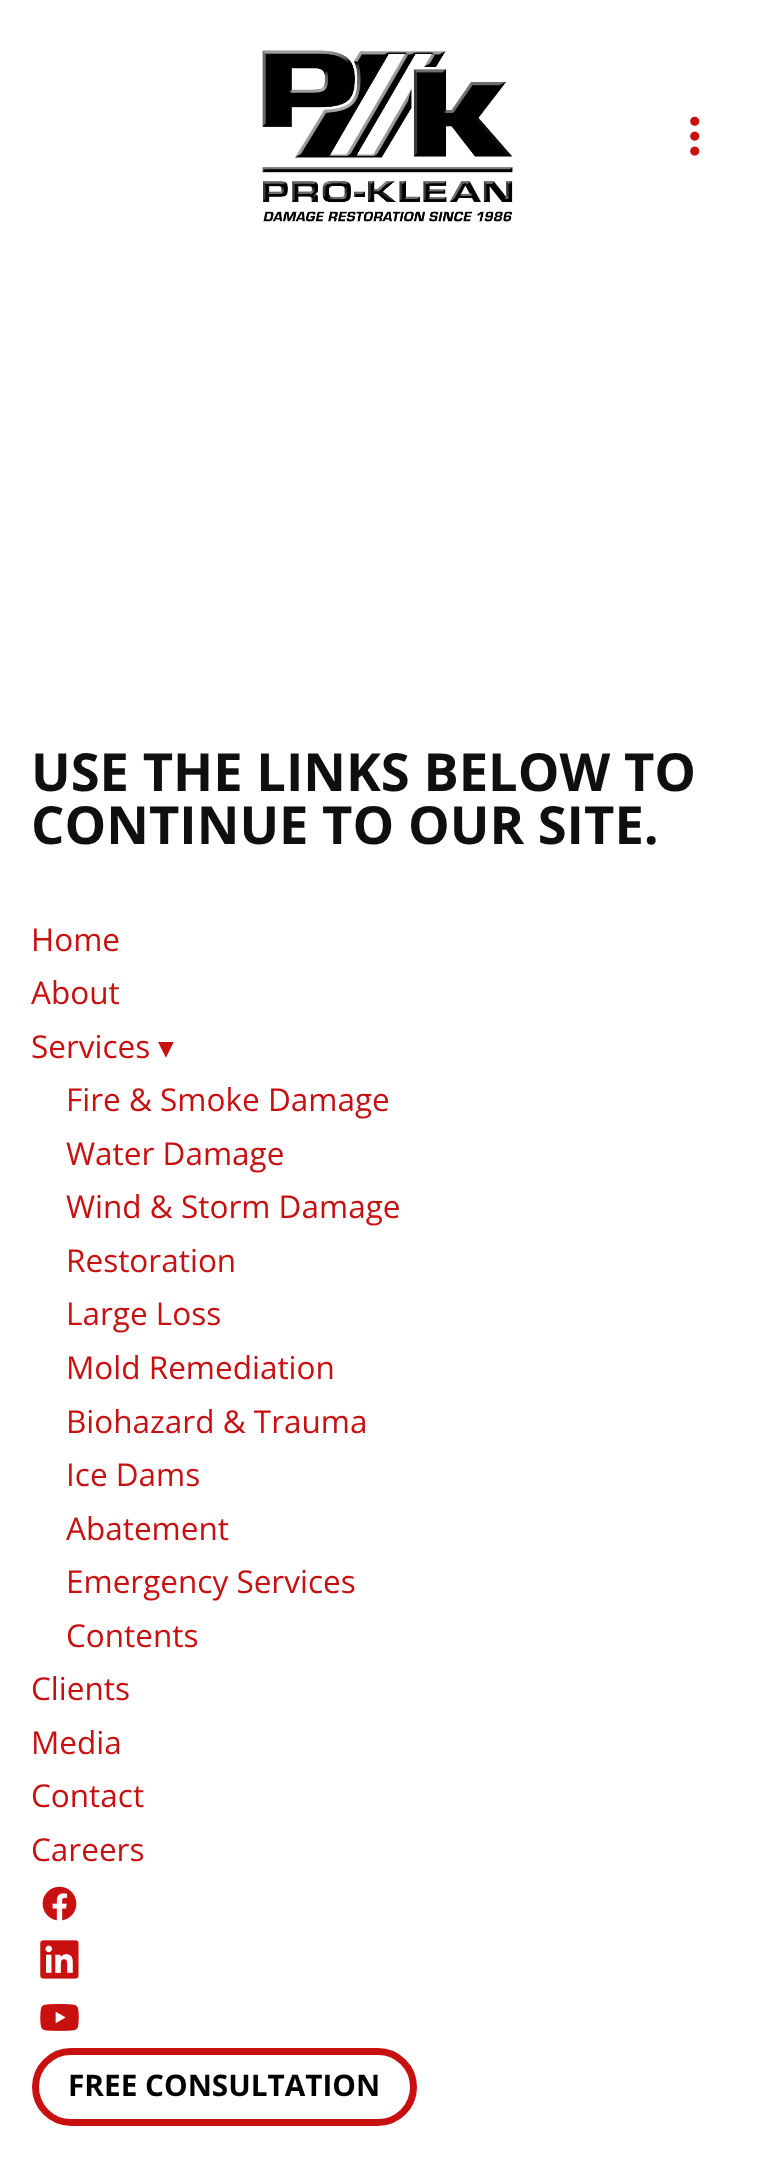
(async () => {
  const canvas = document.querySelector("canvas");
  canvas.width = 772;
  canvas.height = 2158;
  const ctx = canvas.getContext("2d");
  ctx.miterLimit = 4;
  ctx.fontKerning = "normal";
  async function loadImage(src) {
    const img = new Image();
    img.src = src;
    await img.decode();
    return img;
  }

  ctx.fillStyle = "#ffffff";
  ctx.fillRect(0, 0, 772, 2158);
  ctx.drawImage(await loadImage("img/1.png"), 262, 50, 251, 172);
  ctx.drawImage(await loadImage("img/2.png"), 690, 116, 10, 40);
  ctx.drawImage(await loadImage("img/3.png"), 42, 1886, 35, 35);
  ctx.drawImage(await loadImage("img/4.png"), 40, 1940, 39, 39);
  ctx.drawImage(await loadImage("img/5.png"), 40, 2004, 39, 27);
  ctx.beginPath();
  ctx.roundRect(35.5, 2051.5, 378, 71, 35.5);
  ctx.strokeStyle = "#c81010";
  ctx.lineWidth = 7;
  ctx.stroke();
  ctx.font = "bold 52.5px Open Sans";
  ctx.fillStyle = "#0f0f0f";
  ctx.fillText("USE THE LINKS BELOW TO", 31, 791);
  ctx.fillText("CONTINUE TO OUR SITE.", 31, 844);
  ctx.font = "31.5px Open Sans";
  ctx.fillStyle = "#c81010";
  for (const [text, x, y] of [
    ["Home", 31, 951],
    ["About", 31, 1004],
    ["Services", 31, 1058],
  ]) {
    ctx.fillText(text, x, y);
  }
  ctx.font = "31.5px DejaVu Sans";
  ctx.fillText("▾", 158, 1058);
  ctx.font = "31.5px Open Sans";
  for (const [text, x, y] of [
    ["Fire & Smoke Damage", 66, 1111],
    ["Water Damage", 66, 1165],
    ["Wind & Storm Damage", 66, 1218],
    ["Restoration", 66, 1272],
    ["Large Loss", 66, 1325],
    ["Mold Remediation", 66, 1379],
    ["Biohazard & Trauma", 66, 1433],
    ["Ice Dams", 66, 1486],
    ["Abatement", 66, 1540],
    ["Emergency Services", 66, 1593],
    ["Contents", 66, 1647],
    ["Clients", 31, 1700],
    ["Media", 31, 1754],
    ["Contact", 31, 1807],
    ["Careers", 31, 1861],
  ]) {
    ctx.fillText(text, x, y);
  }
  ctx.font = "bold 29.75px Open Sans";
  ctx.fillStyle = "#000000";
  ctx.fillText("FREE CONSULTATION", 68, 2096);
})();
